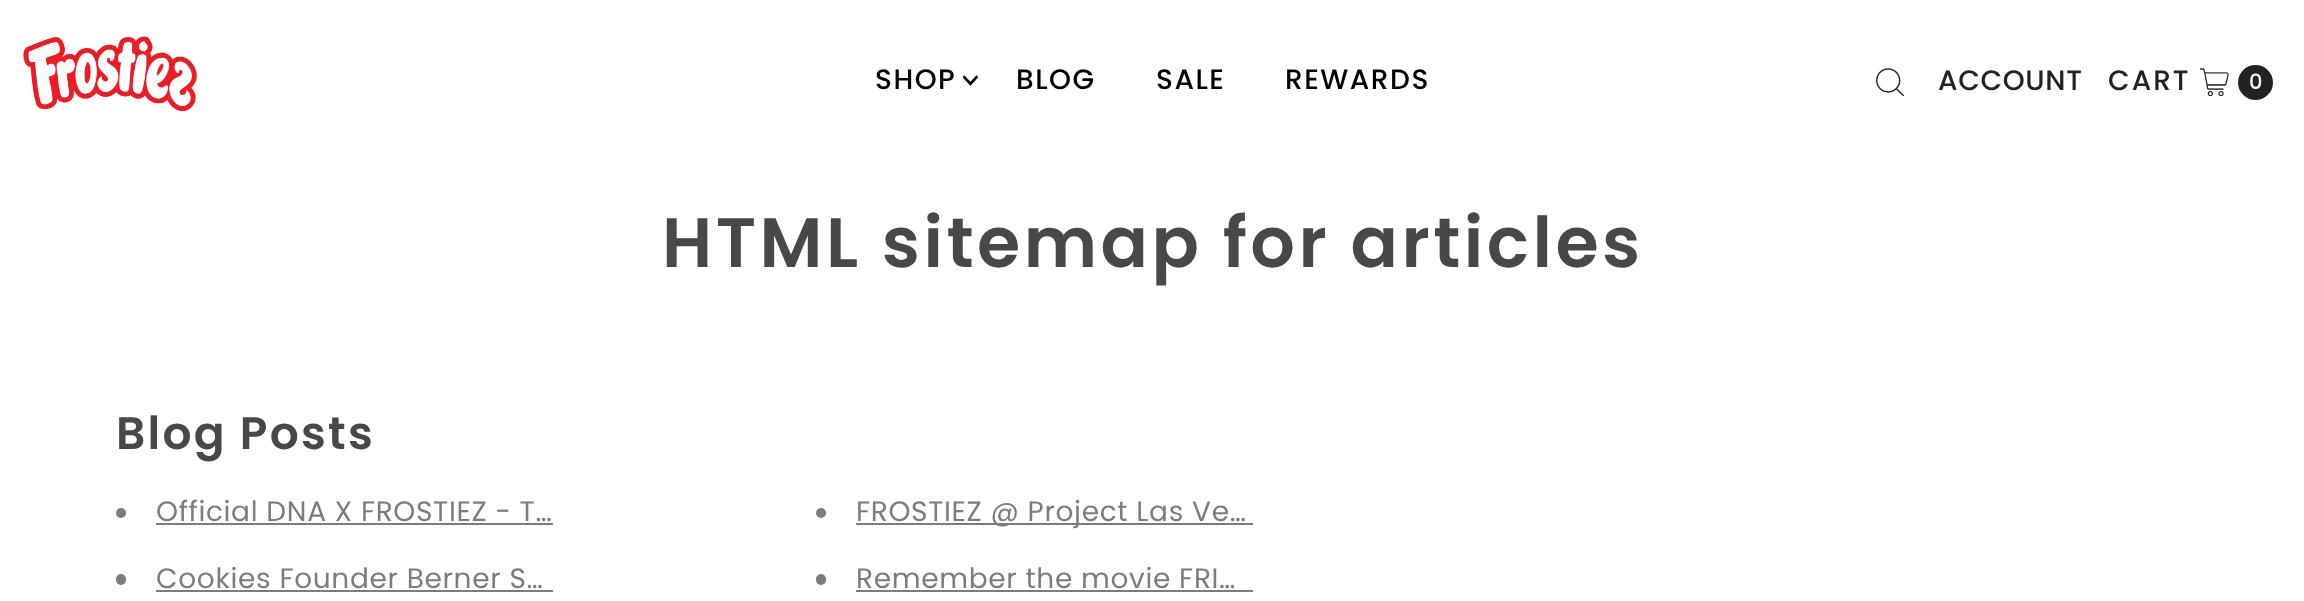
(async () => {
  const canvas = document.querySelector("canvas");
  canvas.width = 2304;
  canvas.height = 601;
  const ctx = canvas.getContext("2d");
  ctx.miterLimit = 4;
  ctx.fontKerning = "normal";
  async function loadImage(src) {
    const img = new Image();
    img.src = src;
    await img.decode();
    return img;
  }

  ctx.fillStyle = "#ffffff";
  ctx.fillRect(0, 0, 2304, 601);
  ctx.drawImage(await loadImage("img/1.png"), 23, 36, 174, 76);
  ctx.drawImage(await loadImage("img/2.png"), 963, 75, 15, 11);
  ctx.drawImage(await loadImage("img/3.png"), 1876, 68, 28, 28);
  ctx.drawImage(await loadImage("img/4.png"), 2200, 68, 29, 28);
  ctx.fillStyle = "#222222";
  ctx.beginPath();
  ctx.arc(2255.5, 82.5, 17.5, 0, Math.PI * 2);
  ctx.fill();
  ctx.fillStyle = "#7c7c7c";
  ctx.beginPath();
  ctx.arc(121, 513, 5, 0, Math.PI * 2);
  ctx.fill();
  ctx.fillRect(156, 523, 397, 2);
  ctx.beginPath();
  ctx.arc(821, 513, 5, 0, Math.PI * 2);
  ctx.fill();
  ctx.fillRect(856, 523, 397, 2);
  ctx.beginPath();
  ctx.roundRect(116, 574, 10, 11, 5);
  ctx.fill();
  ctx.fillRect(156, 590, 397, 2);
  ctx.beginPath();
  ctx.roundRect(816, 574, 10, 11, 5);
  ctx.fill();
  ctx.fillRect(856, 590, 397, 2);
  ctx.letterSpacing = "1.5px";
  ctx.font = "500 28px Poppins";
  ctx.fillStyle = "#000000";
  for (const [text, x, y] of [
    ["SHOP", 875, 89],
    ["BLOG", 1016, 89],
    ["SALE", 1156, 89],
    ["REWARDS", 1285, 89],
  ]) {
    ctx.fillText(text, x, y);
  }
  ctx.letterSpacing = "0.65px";
  ctx.fillStyle = "#222222";
  ctx.fillText("ACCOUNT", 1938, 90);
  ctx.letterSpacing = "2px";
  ctx.fillText("CART", 2108, 90);
  ctx.letterSpacing = "0px";
  ctx.font = "500 21px Poppins";
  ctx.fillStyle = "#ffffff";
  ctx.fillText("0", 2249, 89);
  ctx.letterSpacing = "3.5px";
  ctx.font = "600 70px Poppins";
  ctx.fillStyle = "#484848";
  ctx.fillText("HTML sitemap for articles", 662, 267);
  ctx.letterSpacing = "2.25px";
  ctx.font = "600 45.5px Poppins";
  ctx.fillText("Blog Posts", 116, 449);
  ctx.letterSpacing = "0.65px";
  ctx.font = "28px Poppins";
  ctx.fillStyle = "#7c7c7c";
  for (const [text, x, y] of [
    ["Official DNA X FROSTIEZ - T…", 156, 521],
    ["FROSTIEZ @ Project Las Ve…", 856, 521],
    ["Cookies Founder Berner S…", 156, 588],
    ["Remember the movie FRI…", 856, 588],
  ]) {
    ctx.fillText(text, x, y);
  }
})();
